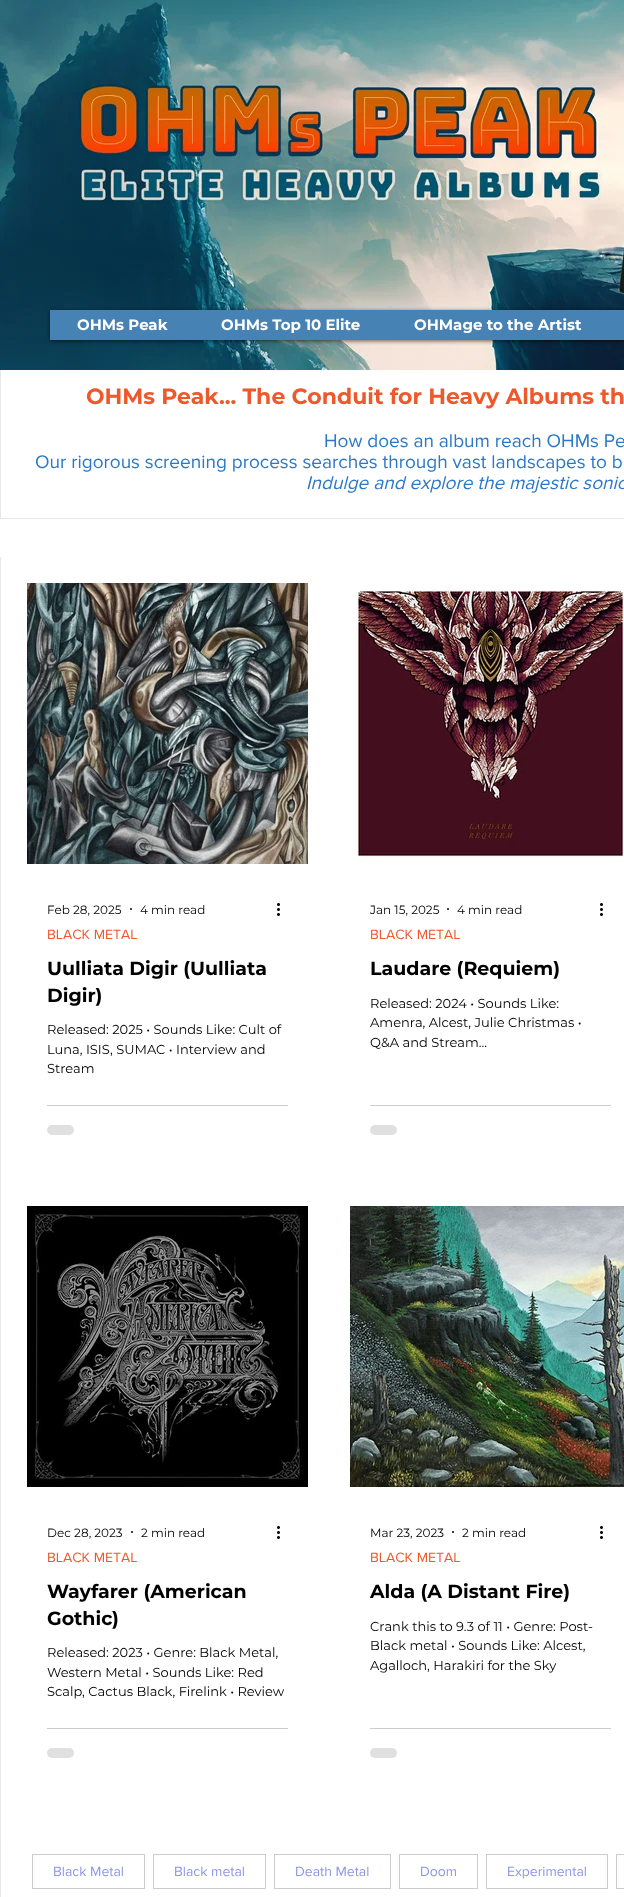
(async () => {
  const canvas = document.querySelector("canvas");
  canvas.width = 624;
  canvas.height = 1897;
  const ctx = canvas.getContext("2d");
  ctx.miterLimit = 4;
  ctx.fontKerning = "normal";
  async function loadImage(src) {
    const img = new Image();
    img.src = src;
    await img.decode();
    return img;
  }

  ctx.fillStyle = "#ffffff";
  ctx.fillRect(0, 0, 624, 1897);
  ctx.drawImage(await loadImage("img/1.png"), 0, 0, 624, 370);
  ctx.fillStyle = "rgba(0, 0, 0, 0.6)";
  ctx.filter = "blur(2px)";
  ctx.beginPath();
  ctx.rect(50, 311, 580, 30);
  ctx.fill();
  ctx.filter = "none";
  for (const [x, y, w, h, color] of [
    [50, 310, 574, 30, "#4682b4"],
    [0, 370, 624, 1468, "#e9e7e7"],
    [1, 370, 623, 148, "#ffffff"],
    [0, 519, 624, 38, "#ffffff"],
    [1, 557, 623, 1281, "#ffffff"],
  ]) {
    ctx.fillStyle = color;
    ctx.fillRect(x, y, w, h);
  }
  ctx.drawImage(await loadImage("img/2.png"), 27, 583, 281, 281);
  ctx.fillStyle = "#000000";
  ctx.beginPath();
  ctx.arc(131, 909, 1, 0, Math.PI * 2);
  ctx.fill();
  ctx.drawImage(await loadImage("img/3.png"), 277, 903, 3, 13);
  ctx.fillStyle = "#cccccc";
  ctx.fillRect(47, 1105, 241, 1);
  ctx.fillStyle = "#e0e0e0";
  ctx.beginPath();
  ctx.roundRect(47, 1125, 27, 10, 5);
  ctx.fill();
  ctx.drawImage(await loadImage("img/4.png"), 350, 583, 274, 282);
  ctx.fillStyle = "#000000";
  ctx.beginPath();
  ctx.arc(448, 909, 1, 0, Math.PI * 2);
  ctx.fill();
  ctx.drawImage(await loadImage("img/3.png"), 600, 903, 3, 13);
  ctx.fillStyle = "#cccccc";
  ctx.fillRect(370, 1105, 241, 1);
  ctx.fillStyle = "#e0e0e0";
  ctx.beginPath();
  ctx.roundRect(370, 1125, 27, 10, 5);
  ctx.fill();
  ctx.drawImage(await loadImage("img/5.png"), 27, 1206, 281, 281);
  ctx.fillStyle = "#000000";
  ctx.beginPath();
  ctx.arc(132, 1532, 1, 0, Math.PI * 2);
  ctx.fill();
  ctx.drawImage(await loadImage("img/3.png"), 277, 1526, 3, 13);
  ctx.fillStyle = "#cccccc";
  ctx.fillRect(47, 1728, 241, 1);
  ctx.fillStyle = "#e0e0e0";
  ctx.beginPath();
  ctx.roundRect(47, 1748, 27, 10, 5);
  ctx.fill();
  ctx.drawImage(await loadImage("img/6.png"), 350, 1206, 274, 281);
  ctx.fillStyle = "#000000";
  ctx.beginPath();
  ctx.arc(453, 1532, 1, 0, Math.PI * 2);
  ctx.fill();
  ctx.drawImage(await loadImage("img/3.png"), 600, 1526, 3, 13);
  ctx.fillStyle = "#cccccc";
  ctx.fillRect(370, 1728, 241, 1);
  ctx.fillStyle = "#e0e0e0";
  ctx.beginPath();
  ctx.roundRect(370, 1748, 27, 10, 5);
  ctx.fill();
  ctx.fillStyle = "#e8e6e6";
  ctx.fillRect(0, 1838, 1, 59);
  ctx.strokeStyle = "#cccccc";
  ctx.strokeRect(32.5, 1854.5, 112, 34);
  ctx.strokeRect(153.5, 1854.5, 112, 34);
  ctx.strokeRect(274.5, 1854.5, 116, 34);
  ctx.strokeRect(399.5, 1854.5, 78, 34);
  ctx.strokeRect(486.5, 1854.5, 121, 34);
  ctx.strokeRect(616.5, 1854.5, 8, 34);
  ctx.font = "bold 15px Montserrat";
  ctx.fillStyle = "#ffffff";
  for (const [text, x, y] of [
    ["OHMs Peak", 77, 330],
    ["OHMs Top 10 Elite", 221, 330],
    ["OHMage to the Artist", 414, 330],
  ]) {
    ctx.fillText(text, x, y);
  }
  ctx.font = "bold 22px Montserrat";
  ctx.fillStyle = "#ed592c";
  ctx.fillText("OHMs Peak... The Conduit for Heav", 86, 404);
  ctx.fillText("y Albums th", 486, 404);
  ctx.font = "19px 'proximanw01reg'";
  ctx.fillStyle = "#2a78c6";
  ctx.fillText("How does an album reach OHMs Pe", 324, 447);
  ctx.fillText("Our rigorous screening process searches through vast landscapes to b", 35, 468);
  ctx.font = "italic 19px 'proximanw01reg'";
  ctx.fillText("Indulge and explore the majestic sonic", 306, 489);
  ctx.font = "12px Montserrat";
  ctx.fillStyle = "#000000";
  ctx.fillText("Feb 28, 2025", 47, 914);
  ctx.fillText("4 min read", 140, 914);
  ctx.font = "14px 'proximanw01reg'";
  ctx.fillStyle = "#ed592c";
  ctx.fillText("BLACK METAL", 47, 939);
  ctx.font = "bold 19px Montserrat";
  ctx.fillStyle = "#000000";
  ctx.fillText("Uulliata Digir (Uulliata", 47, 975);
  ctx.fillText("Digir)", 47, 1002);
  ctx.font = "13px Montserrat";
  for (const [text, x, y] of [
    ["Released: 2025 • Sounds Like: Cult of", 47, 1034],
    ["Luna, ISIS, SUMAC • Interview and", 47, 1054],
    ["Stream", 47, 1073],
  ]) {
    ctx.fillText(text, x, y);
  }
  ctx.font = "12px Montserrat";
  ctx.fillText("Jan 15, 2025", 370, 914);
  ctx.fillText("4 min read", 457, 914);
  ctx.font = "14px 'proximanw01reg'";
  ctx.fillStyle = "#ed592c";
  ctx.fillText("BLACK METAL", 370, 939);
  ctx.font = "bold 19px Montserrat";
  ctx.fillStyle = "#000000";
  ctx.fillText("Laudare (Requiem)", 370, 975);
  ctx.font = "13px Montserrat";
  for (const [text, x, y] of [
    ["Released: 2024 • Sounds Like:", 370, 1008],
    ["Amenra, Alcest, Julie Christmas •", 370, 1027],
    ["Q&A and Stream...", 370, 1047],
  ]) {
    ctx.fillText(text, x, y);
  }
  ctx.font = "12px Montserrat";
  ctx.fillText("Dec 28, 2023", 47, 1537);
  ctx.fillText("2 min read", 141, 1537);
  ctx.font = "14px 'proximanw01reg'";
  ctx.fillStyle = "#ed592c";
  ctx.fillText("BLACK METAL", 47, 1562);
  ctx.font = "bold 19px Montserrat";
  ctx.fillStyle = "#000000";
  ctx.fillText("Wayfarer (American", 47, 1598);
  ctx.fillText("Gothic)", 47, 1625);
  ctx.font = "13px Montserrat";
  for (const [text, x, y] of [
    ["Released: 2023 • Genre: Black Metal,", 47, 1657],
    ["Western Metal • Sounds Like: Red", 47, 1677],
    ["Scalp, Cactus Black, Firelink • Review", 47, 1696],
  ]) {
    ctx.fillText(text, x, y);
  }
  ctx.font = "12px Montserrat";
  ctx.fillText("Mar 23, 2023", 370, 1537);
  ctx.fillText("2 min read", 462, 1537);
  ctx.font = "14px 'proximanw01reg'";
  ctx.fillStyle = "#ed592c";
  ctx.fillText("BLACK METAL", 370, 1562);
  ctx.font = "bold 19px Montserrat";
  ctx.fillStyle = "#000000";
  ctx.fillText("Alda (A Distant Fire)", 370, 1598);
  ctx.font = "13px Montserrat";
  for (const [text, x, y] of [
    ["Crank this to 9.3 of 11 • Genre: Post-", 370, 1631],
    ["Black metal • Sounds Like: Alcest,", 370, 1650],
    ["Agalloch, Harakiri for the Sky", 370, 1670],
  ]) {
    ctx.fillText(text, x, y);
  }
  ctx.font = "14px 'proximanw01reg'";
  ctx.fillStyle = "#8f98e2";
  for (const [text, x, y] of [
    ["Black Metal", 53, 1876],
    ["Black metal", 174, 1876],
    ["Death Metal", 295, 1876],
    ["Doom", 420, 1876],
    ["Experimental", 507, 1876],
  ]) {
    ctx.fillText(text, x, y);
  }
})();
